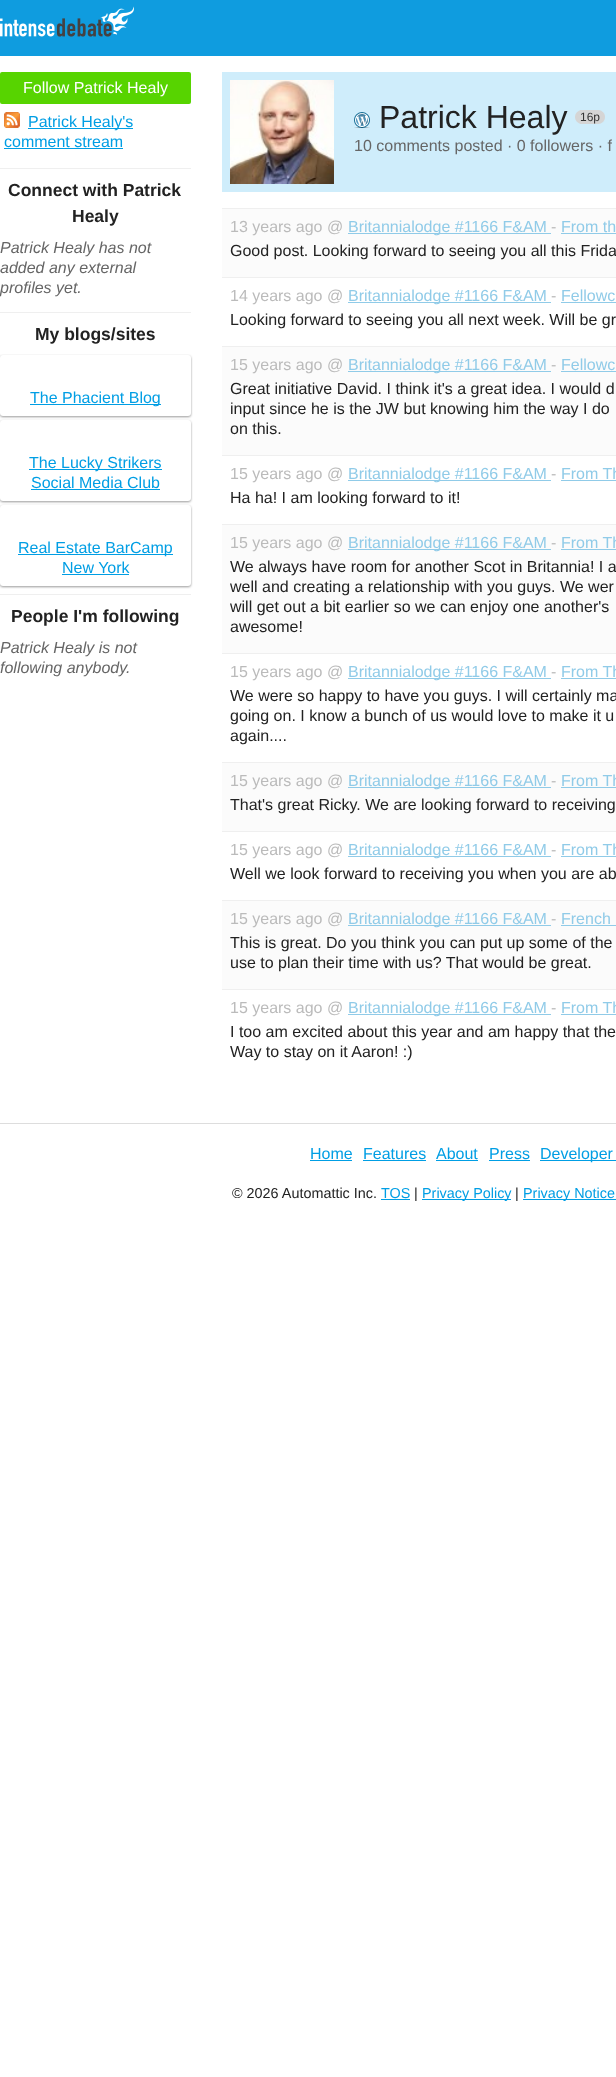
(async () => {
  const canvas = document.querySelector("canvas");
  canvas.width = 616;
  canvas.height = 2077;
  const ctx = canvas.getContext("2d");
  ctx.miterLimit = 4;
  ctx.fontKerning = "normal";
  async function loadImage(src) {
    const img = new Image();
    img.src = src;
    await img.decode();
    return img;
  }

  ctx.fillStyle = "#ffffff";
  ctx.fillRect(0, 0, 616, 2077);
  ctx.fillStyle = "#0f9cdf";
  ctx.fillRect(0, 0, 616, 56);
  ctx.drawImage(await loadImage("img/1.png"), 0, 6, 134, 31);
  ctx.fillStyle = "#57d400";
  ctx.beginPath();
  ctx.roundRect(0, 72, 191, 32, 2);
  ctx.fill();
  ctx.drawImage(await loadImage("img/2.png"), 4, 112, 16, 16);
  for (const [x, y, w, h, color] of [
    [28, 128, 105, 1, "#009ee4"],
    [4, 148, 119, 1, "#009ee4"],
    [0, 168, 191, 1, "#efefef"],
    [0, 312, 191, 1, "#efefef"],
  ]) {
    ctx.fillStyle = color;
    ctx.fillRect(x, y, w, h);
  }
  ctx.fillStyle = "#999999";
  ctx.filter = "blur(1px)";
  ctx.beginPath();
  ctx.roundRect(0, 356, 191, 61, 3);
  ctx.fill();
  ctx.filter = "none";
  ctx.fillStyle = "#ffffff";
  ctx.beginPath();
  ctx.roundRect(0, 355, 191, 61, 3);
  ctx.fill();
  ctx.fillStyle = "#009ee4";
  ctx.fillRect(30, 404, 131, 1);
  ctx.fillStyle = "#999999";
  ctx.filter = "blur(1px)";
  ctx.beginPath();
  ctx.roundRect(0, 421, 191, 81, 3);
  ctx.fill();
  ctx.filter = "none";
  ctx.fillStyle = "#ffffff";
  ctx.beginPath();
  ctx.roundRect(0, 420, 191, 81, 3);
  ctx.fill();
  ctx.fillStyle = "#009ee4";
  ctx.fillRect(29, 469, 133, 1);
  ctx.fillRect(31, 489, 129, 1);
  ctx.fillStyle = "#999999";
  ctx.filter = "blur(1px)";
  ctx.beginPath();
  ctx.roundRect(0, 506, 191, 81, 3);
  ctx.fill();
  ctx.filter = "none";
  ctx.fillStyle = "#ffffff";
  ctx.beginPath();
  ctx.roundRect(0, 505, 191, 81, 3);
  ctx.fill();
  for (const [x, y, w, h, color] of [
    [18, 554, 155, 1, "#009ee4"],
    [62, 574, 67, 1, "#009ee4"],
    [0, 594, 191, 1, "#efefef"],
    [222, 72, 394, 120, "#cfedfb"],
  ]) {
    ctx.fillStyle = color;
    ctx.fillRect(x, y, w, h);
  }
  ctx.drawImage(await loadImage("img/3.png"), 230, 80, 104, 104);
  ctx.drawImage(await loadImage("img/4.png"), 354, 112, 16, 16);
  ctx.drawImage(await loadImage("img/5.png"), 575, 110, 5, 14);
  ctx.drawImage(await loadImage("img/6.png"), 580, 110, 25, 14);
  for (const [x, y, w, h, color] of [
    [222, 209, 394, 68, "#fbfbfb"],
    [222, 208, 394, 1, "#efefef"],
    [348, 233, 203, 1, "#90cbe8"],
    [561, 233, 55, 1, "#90cbe8"],
    [222, 277, 394, 1, "#efefef"],
    [348, 302, 203, 1, "#90cbe8"],
    [561, 302, 55, 1, "#90cbe8"],
    [222, 347, 394, 108, "#fbfbfb"],
    [222, 346, 394, 1, "#efefef"],
    [348, 371, 203, 1, "#90cbe8"],
    [561, 371, 55, 1, "#90cbe8"],
    [222, 455, 394, 1, "#efefef"],
    [348, 480, 203, 1, "#90cbe8"],
    [561, 480, 55, 1, "#90cbe8"],
    [222, 525, 394, 128, "#fbfbfb"],
    [222, 524, 394, 1, "#efefef"],
    [348, 549, 203, 1, "#90cbe8"],
    [561, 549, 55, 1, "#90cbe8"],
    [222, 653, 394, 1, "#efefef"],
    [348, 678, 203, 1, "#90cbe8"],
    [561, 678, 55, 1, "#90cbe8"],
    [222, 763, 394, 68, "#fbfbfb"],
    [222, 762, 394, 1, "#efefef"],
    [348, 787, 203, 1, "#90cbe8"],
    [561, 787, 55, 1, "#90cbe8"],
    [222, 831, 394, 1, "#efefef"],
    [348, 856, 203, 1, "#90cbe8"],
    [561, 856, 55, 1, "#90cbe8"],
    [222, 901, 394, 88, "#fbfbfb"],
    [222, 900, 394, 1, "#efefef"],
    [348, 925, 203, 1, "#90cbe8"],
    [561, 925, 55, 1, "#90cbe8"],
    [222, 989, 394, 1, "#efefef"],
    [348, 1014, 203, 1, "#90cbe8"],
    [561, 1014, 55, 1, "#90cbe8"],
    [0, 1123, 616, 1, "#dddddd"],
    [310, 1160, 42, 1, "#009ee4"],
    [363, 1160, 63, 1, "#009ee4"],
    [436, 1160, 42, 1, "#009ee4"],
    [489, 1160, 41, 1, "#009ee4"],
    [540, 1160, 76, 1, "#009ee4"],
    [381, 1199, 29, 1, "#009ee4"],
    [422, 1199, 89, 1, "#009ee4"],
    [523, 1199, 93, 1, "#009ee4"],
  ]) {
    ctx.fillStyle = color;
    ctx.fillRect(x, y, w, h);
  }
  ctx.font = "16px Liberation Sans";
  ctx.fillStyle = "#ffffff";
  ctx.fillText("Follow Patrick Healy", 23, 93);
  ctx.fillStyle = "#009ee4";
  ctx.fillText("Patrick Healy's", 28, 127);
  ctx.fillText("comment stream", 4, 147);
  ctx.font = "bold 17.5px Liberation Sans";
  ctx.fillStyle = "#222222";
  ctx.fillText("Connect with Patrick", 8, 196);
  ctx.fillText("Healy", 72, 222);
  ctx.font = "italic 16px Liberation Sans";
  ctx.fillStyle = "#666666";
  for (const [text, x, y] of [
    ["Patrick Healy has not", 0, 253],
    ["added any external", 0, 273],
    ["profiles yet.", 0, 293],
  ]) {
    ctx.fillText(text, x, y);
  }
  ctx.font = "bold 17.5px Liberation Sans";
  ctx.fillStyle = "#222222";
  ctx.fillText("My blogs/sites", 35, 340);
  ctx.font = "16px Liberation Sans";
  ctx.fillStyle = "#009ee4";
  for (const [text, x, y] of [
    ["The Phacient Blog", 30, 403],
    ["The Lucky Strikers", 29, 468],
    ["Social Media Club", 31, 488],
    ["Real Estate BarCamp", 18, 553],
    ["New York", 62, 573],
  ]) {
    ctx.fillText(text, x, y);
  }
  ctx.font = "bold 17.5px Liberation Sans";
  ctx.fillStyle = "#222222";
  ctx.fillText("People I'm following", 11, 622);
  ctx.font = "italic 16px Liberation Sans";
  ctx.fillStyle = "#666666";
  ctx.fillText("Patrick Healy is not", 0, 653);
  ctx.fillText("following anybody.", 0, 673);
  ctx.font = "32px Liberation Sans";
  ctx.fillStyle = "#222222";
  ctx.fillText("Patrick Healy", 379, 128);
  ctx.font = "12px Liberation Sans";
  ctx.fillStyle = "#333333";
  ctx.fillText("16p", 580, 121);
  ctx.font = "16px Liberation Sans";
  ctx.fillStyle = "#666666";
  ctx.fillText("10 comments posted · 0 followers · f", 354, 151);
  ctx.fillStyle = "#bbbbbb";
  ctx.fillText("13 years ago @", 230, 232);
  ctx.fillStyle = "#90cbe8";
  ctx.fillText("Britannialodge #1166 F&AM", 348, 232);
  ctx.fillStyle = "#bbbbbb";
  ctx.fillText("-", 551, 232);
  ctx.fillStyle = "#90cbe8";
  ctx.fillText("From th", 561, 232);
  ctx.fillStyle = "#222222";
  ctx.fillText("Good post. Looking forward to seeing you all this Frida", 230, 256);
  ctx.fillStyle = "#bbbbbb";
  ctx.fillText("14 years ago @", 230, 301);
  ctx.fillStyle = "#90cbe8";
  ctx.fillText("Britannialodge #1166 F&AM", 348, 301);
  ctx.fillStyle = "#bbbbbb";
  ctx.fillText("-", 551, 301);
  ctx.fillStyle = "#90cbe8";
  ctx.fillText("Fellowc", 561, 301);
  ctx.fillStyle = "#222222";
  ctx.fillText("Looking forward to seeing you all next week. Will be gr", 230, 325);
  ctx.fillStyle = "#bbbbbb";
  ctx.fillText("15 years ago @", 230, 370);
  ctx.fillStyle = "#90cbe8";
  ctx.fillText("Britannialodge #1166 F&AM", 348, 370);
  ctx.fillStyle = "#bbbbbb";
  ctx.fillText("-", 551, 370);
  ctx.fillStyle = "#90cbe8";
  ctx.fillText("Fellowc", 561, 370);
  ctx.fillStyle = "#222222";
  for (const [text, x, y] of [
    ["Great initiative David. I think it's a great idea. I would d", 230, 394],
    ["input since he is the JW but knowing him the way I do", 230, 414],
    ["on this.", 230, 434],
  ]) {
    ctx.fillText(text, x, y);
  }
  ctx.fillStyle = "#bbbbbb";
  ctx.fillText("15 years ago @", 230, 479);
  ctx.fillStyle = "#90cbe8";
  ctx.fillText("Britannialodge #1166 F&AM", 348, 479);
  ctx.fillStyle = "#bbbbbb";
  ctx.fillText("-", 551, 479);
  ctx.fillStyle = "#90cbe8";
  ctx.fillText("From Th", 561, 479);
  ctx.fillStyle = "#222222";
  ctx.fillText("Ha ha! I am looking forward to it!", 230, 503);
  ctx.fillStyle = "#bbbbbb";
  ctx.fillText("15 years ago @", 230, 548);
  ctx.fillStyle = "#90cbe8";
  ctx.fillText("Britannialodge #1166 F&AM", 348, 548);
  ctx.fillStyle = "#bbbbbb";
  ctx.fillText("-", 551, 548);
  ctx.fillStyle = "#90cbe8";
  ctx.fillText("From Th", 561, 548);
  ctx.fillStyle = "#222222";
  for (const [text, x, y] of [
    ["We always have room for another Scot in Britannia! I a", 230, 572],
    ["well and creating a relationship with you guys. We wer", 230, 592],
    ["will get out a bit earlier so we can enjoy one another's", 230, 612],
    ["awesome!", 230, 632],
  ]) {
    ctx.fillText(text, x, y);
  }
  ctx.fillStyle = "#bbbbbb";
  ctx.fillText("15 years ago @", 230, 677);
  ctx.fillStyle = "#90cbe8";
  ctx.fillText("Britannialodge #1166 F&AM", 348, 677);
  ctx.fillStyle = "#bbbbbb";
  ctx.fillText("-", 551, 677);
  ctx.fillStyle = "#90cbe8";
  ctx.fillText("From Th", 561, 677);
  ctx.fillStyle = "#222222";
  for (const [text, x, y] of [
    ["We were so happy to have you guys. I will certainly ma", 230, 701],
    ["going on. I know a bunch of us would love to make it u", 230, 721],
    ["again....", 230, 741],
  ]) {
    ctx.fillText(text, x, y);
  }
  ctx.fillStyle = "#bbbbbb";
  ctx.fillText("15 years ago @", 230, 786);
  ctx.fillStyle = "#90cbe8";
  ctx.fillText("Britannialodge #1166 F&AM", 348, 786);
  ctx.fillStyle = "#bbbbbb";
  ctx.fillText("-", 551, 786);
  ctx.fillStyle = "#90cbe8";
  ctx.fillText("From Th", 561, 786);
  ctx.fillStyle = "#222222";
  ctx.fillText("That's great Ricky. We are looking forward to receiving", 230, 810);
  ctx.fillStyle = "#bbbbbb";
  ctx.fillText("15 years ago @", 230, 855);
  ctx.fillStyle = "#90cbe8";
  ctx.fillText("Britannialodge #1166 F&AM", 348, 855);
  ctx.fillStyle = "#bbbbbb";
  ctx.fillText("-", 551, 855);
  ctx.fillStyle = "#90cbe8";
  ctx.fillText("From Th", 561, 855);
  ctx.fillStyle = "#222222";
  ctx.fillText("Well we look forward to receiving you when you are ab", 230, 879);
  ctx.fillStyle = "#bbbbbb";
  ctx.fillText("15 years ago @", 230, 924);
  ctx.fillStyle = "#90cbe8";
  ctx.fillText("Britannialodge #1166 F&AM", 348, 924);
  ctx.fillStyle = "#bbbbbb";
  ctx.fillText("-", 551, 924);
  ctx.fillStyle = "#90cbe8";
  ctx.fillText("French", 561, 924);
  ctx.fillStyle = "#222222";
  ctx.fillText("This is great. Do you think you can put up some of the", 230, 948);
  ctx.fillText("use to plan their time with us? That would be great.", 230, 968);
  ctx.fillStyle = "#bbbbbb";
  ctx.fillText("15 years ago @", 230, 1013);
  ctx.fillStyle = "#90cbe8";
  ctx.fillText("Britannialodge #1166 F&AM", 348, 1013);
  ctx.fillStyle = "#bbbbbb";
  ctx.fillText("-", 551, 1013);
  ctx.fillStyle = "#90cbe8";
  ctx.fillText("From Th", 561, 1013);
  ctx.fillStyle = "#222222";
  ctx.fillText("I too am excited about this year and am happy that the", 230, 1037);
  ctx.fillText("Way to stay on it Aaron! :)", 230, 1057);
  ctx.fillStyle = "#009ee4";
  for (const [text, x, y] of [
    ["Home", 310, 1159],
    ["Features", 363, 1159],
    ["About", 436, 1159],
    ["Press", 489, 1159],
    ["Developer", 540, 1159],
  ]) {
    ctx.fillText(text, x, y);
  }
  ctx.font = "14.4px Liberation Sans";
  ctx.fillStyle = "#222222";
  ctx.fillText("© 2026 Automattic Inc.", 232, 1198);
  ctx.fillStyle = "#009ee4";
  ctx.fillText("TOS", 381, 1198);
  ctx.fillStyle = "#222222";
  ctx.fillText("|", 414, 1198);
  ctx.fillStyle = "#009ee4";
  ctx.fillText("Privacy Policy", 422, 1198);
  ctx.fillStyle = "#222222";
  ctx.fillText("|", 515, 1198);
  ctx.fillStyle = "#009ee4";
  ctx.fillText("Privacy Notice", 523, 1198);
})();
